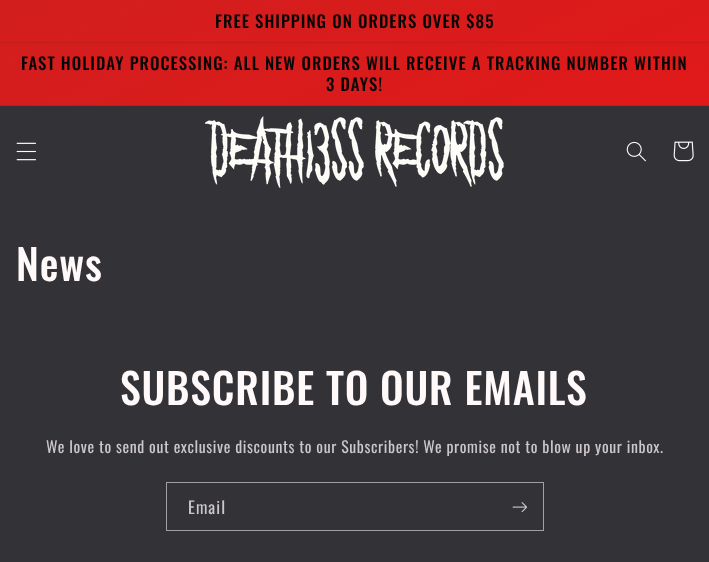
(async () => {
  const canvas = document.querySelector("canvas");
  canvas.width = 709;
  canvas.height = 562;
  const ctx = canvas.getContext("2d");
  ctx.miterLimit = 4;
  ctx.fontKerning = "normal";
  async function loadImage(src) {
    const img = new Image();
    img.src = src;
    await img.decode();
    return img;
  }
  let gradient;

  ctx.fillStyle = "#323237";
  ctx.fillRect(0, 0, 709, 562);
  gradient = ctx.createLinearGradient(518, 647, 191, -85);
  gradient.addColorStop(0, "#f01313");
  gradient.addColorStop(1, "#d21e1e");
  ctx.fillStyle = gradient;
  ctx.fillRect(0, 0, 709, 42);
  gradient = ctx.createLinearGradient(518, 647, 191, -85);
  gradient.addColorStop(0, "#dd1212");
  gradient.addColorStop(1, "#c21c1c");
  ctx.fillStyle = gradient;
  ctx.fillRect(0, 42, 709, 1);
  gradient = ctx.createLinearGradient(518, 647, 191, -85);
  gradient.addColorStop(0, "#f01313");
  gradient.addColorStop(1, "#d21e1e");
  ctx.fillStyle = gradient;
  ctx.fillRect(0, 43, 709, 62);
  gradient = ctx.createLinearGradient(518, 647, 191, -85);
  gradient.addColorStop(0, "#dd1212");
  gradient.addColorStop(1, "#c21c1c");
  ctx.fillStyle = gradient;
  ctx.fillRect(0, 105, 709, 1);
  ctx.drawImage(await loadImage("img/1.png"), 16, 142, 20, 19);
  ctx.drawImage(await loadImage("img/2.png"), 205, 116, 299, 72);
  ctx.drawImage(await loadImage("img/3.png"), 626, 141, 20, 21);
  ctx.drawImage(await loadImage("img/4.png"), 673, 141, 21, 21);
  ctx.strokeStyle = "#a39fa2";
  ctx.strokeRect(166.5, 482.5, 377, 48);
  ctx.drawImage(await loadImage("img/5.png"), 512, 502, 15, 11);
  ctx.letterSpacing = "1.05px";
  ctx.font = "500 16.8px Oswald";
  ctx.fillStyle = "#070606";
  for (const [text, x, y] of [
    ["FREE SHIPPING ON ORDERS OVER $85", 215, 28],
    ["FAST HOLIDAY PROCESSING: ALL NEW ORDERS WILL RECEIVE A TRACKING NUMBER WITHIN", 21, 70],
    ["3 DAYS!", 326, 91],
  ]) {
    ctx.fillText(text, x, y);
  }
  ctx.letterSpacing = "0.8px";
  ctx.font = "500 42px Oswald";
  ctx.fillStyle = "#fff9f9";
  ctx.fillText("News", 16, 281);
  ctx.fillText("SUBSCRIBE TO OUR EMAILS", 120, 405);
  ctx.letterSpacing = "0.63px";
  ctx.font = "15.75px Oswald";
  ctx.fillStyle = "#ccc7c9";
  ctx.fillText("We love to send out exclusive discounts to our Subscribers! We promise not to blow up your inbox.", 46, 453);
  ctx.letterSpacing = "1.05px";
  ctx.font = "16.8px Oswald";
  ctx.fillText("Email", 188, 514);
})();
